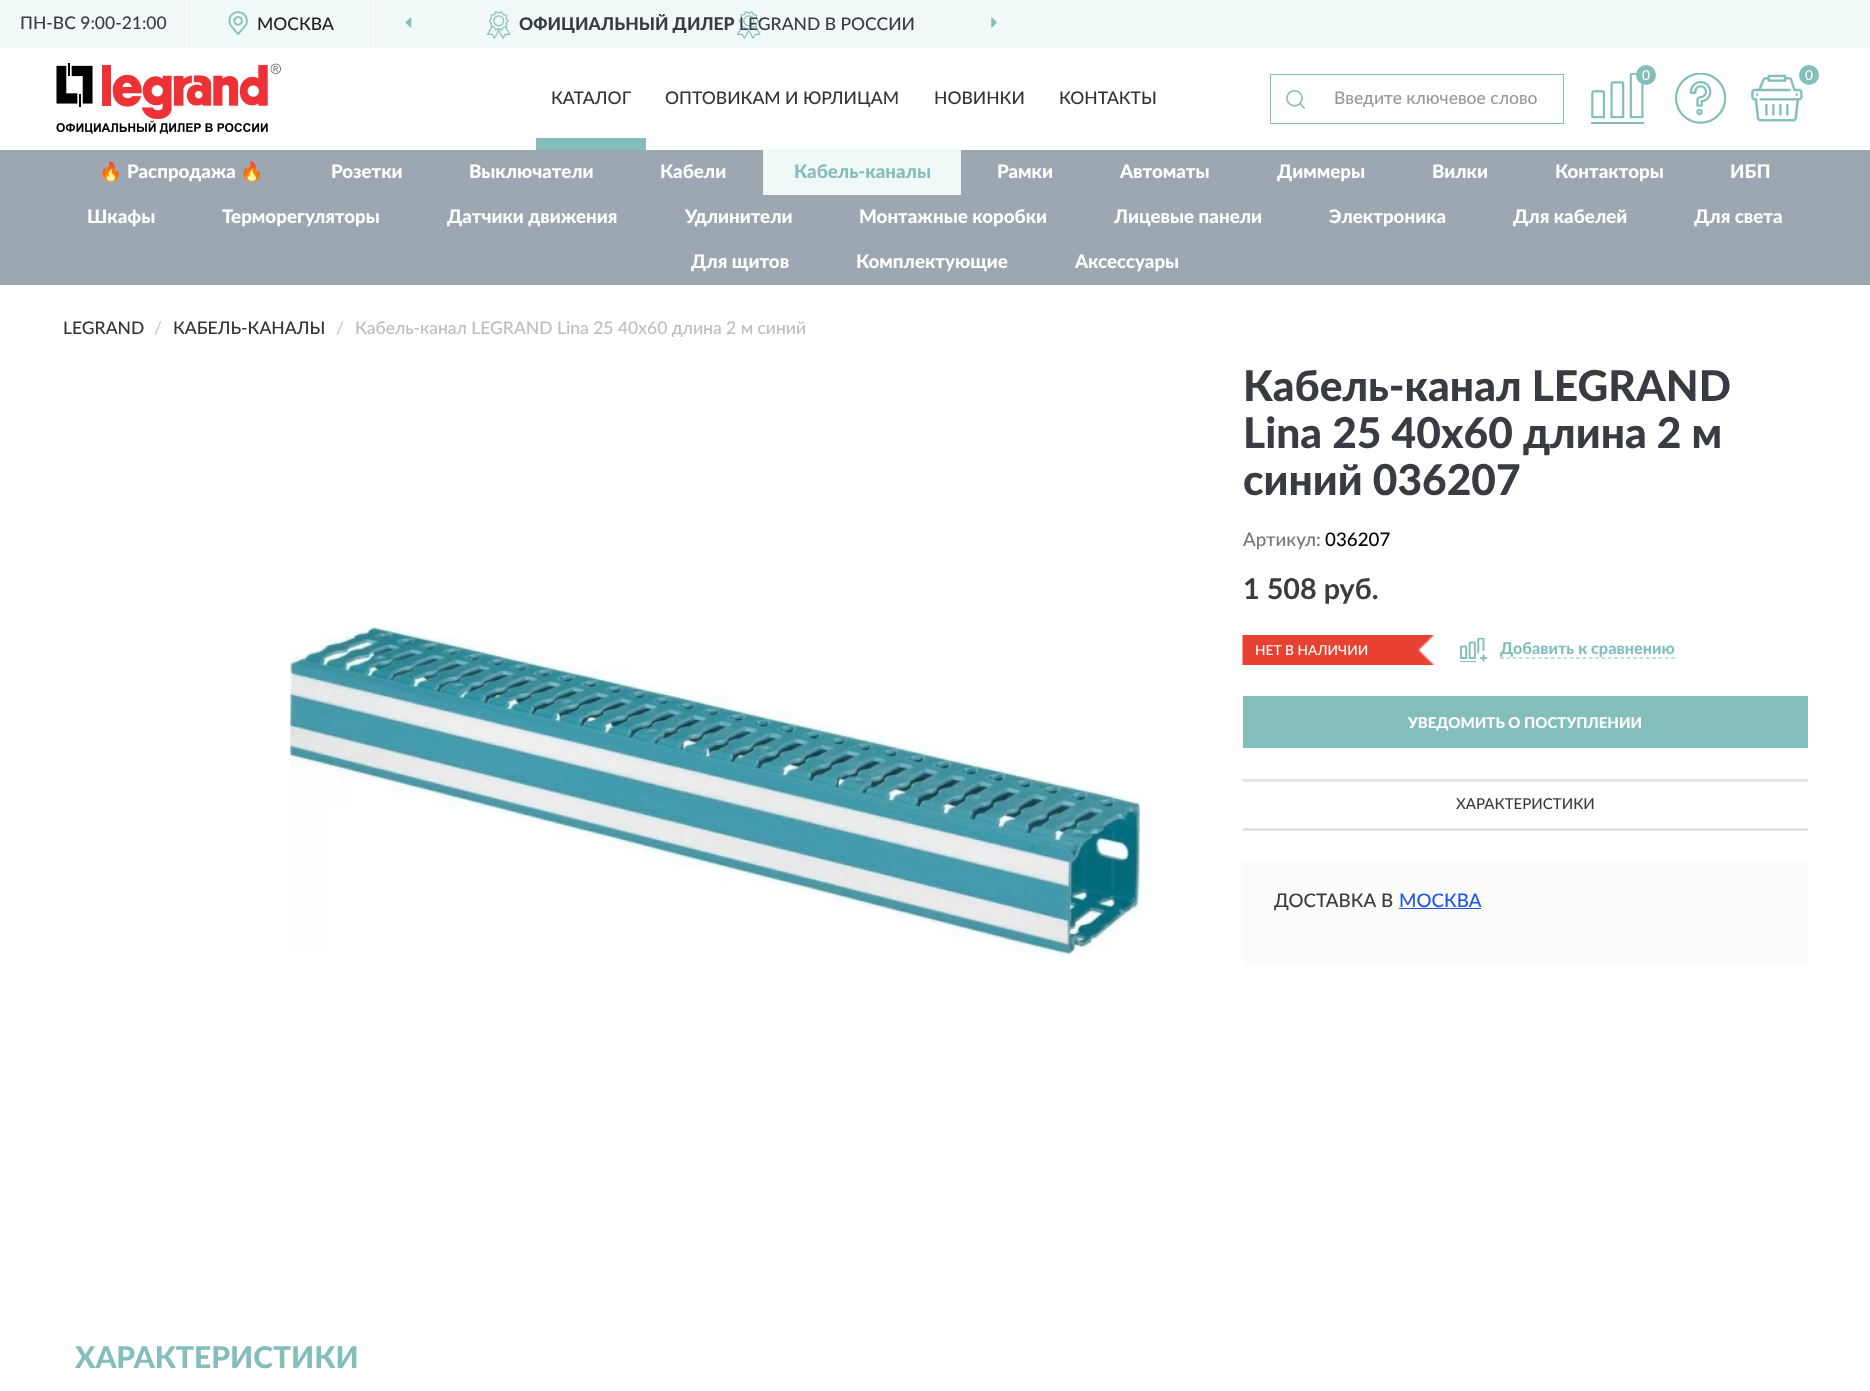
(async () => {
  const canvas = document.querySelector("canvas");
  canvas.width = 1870;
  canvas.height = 1391;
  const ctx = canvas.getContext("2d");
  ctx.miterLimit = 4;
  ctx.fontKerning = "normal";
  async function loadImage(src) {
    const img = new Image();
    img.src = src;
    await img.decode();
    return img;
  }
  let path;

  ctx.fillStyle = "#ffffff";
  ctx.fillRect(0, 0, 1870, 1391);
  for (const [x, y, w, h, color] of [
    [0, 0, 1870, 48, "#f1f8f8"],
    [186, 0, 1, 48, "#ffffff"],
    [373, 0, 1, 48, "#ffffff"],
  ]) {
    ctx.fillStyle = color;
    ctx.fillRect(x, y, w, h);
  }
  ctx.drawImage(await loadImage("img/1.png"), 228, 11, 20, 24);
  ctx.drawImage(await loadImage("img/2.png"), 487, 11, 274, 28);
  ctx.drawImage(await loadImage("img/3.png"), 405, 17, 7, 11);
  ctx.drawImage(await loadImage("img/4.png"), 991, 17, 6, 11);
  ctx.drawImage(await loadImage("img/5.png"), 56, 63, 225, 71);
  ctx.drawImage(await loadImage("img/6.png"), 1591, 73, 53, 51);
  ctx.fillStyle = "#83beba";
  ctx.beginPath();
  ctx.arc(1646, 75, 10, 0, Math.PI * 2);
  ctx.fill();
  ctx.drawImage(await loadImage("img/7.png"), 1675, 73, 51, 51);
  ctx.drawImage(await loadImage("img/8.png"), 1751, 74, 52, 48);
  ctx.beginPath();
  ctx.arc(1809, 75, 10, 0, Math.PI * 2);
  ctx.fill();
  ctx.fillRect(536, 138, 110, 12);
  ctx.drawImage(await loadImage("img/9.png"), 1286, 90, 19, 19);
  for (const [x, y, w, h, color] of [
    [1270, 74, 294, 1, "#83beba"],
    [1270, 123, 50, 1, "#83beba"],
    [1270, 74, 1, 50, "#83beba"],
    [1563, 74, 1, 50, "#83beba"],
    [1319, 123, 245, 1, "#83beba"],
    [0, 150, 1870, 135, "#9da7b1"],
    [763, 150, 198, 45, "#f1f8f8"],
  ]) {
    ctx.fillStyle = color;
    ctx.fillRect(x, y, w, h);
  }
  ctx.drawImage(await loadImage("img/10.png"), 290, 626, 850, 330);
  ctx.drawImage(await loadImage("img/11.png"), 1242, 635, 193, 30);
  ctx.drawImage(await loadImage("img/12.png"), 1460, 638, 28, 24);
  path = new Path2D("M1500 658H1675");
  ctx.strokeStyle = "#83beba";
  ctx.lineWidth = 1.2;
  ctx.setLineDash([3.75, 2.59]);
  ctx.stroke(path);
  for (const [x, y, w, h, color] of [
    [1243, 696, 565, 52, "#83beba"],
    [1243, 779, 565, 3, "#e3e3e3"],
    [1243, 828, 565, 3, "#e3e3e3"],
    [1243, 861, 565, 105, "#fbfbfb"],
    [1399, 908, 82, 1, "#2056ef"],
  ]) {
    ctx.fillStyle = color;
    ctx.fillRect(x, y, w, h);
  }
  ctx.font = "500 17.5px Lato";
  ctx.fillStyle = "#393b42";
  ctx.fillText("ПН-ВС 9:00-21:00", 20, 29);
  ctx.fillStyle = "#222222";
  ctx.fillText("МОСКВА", 257, 30);
  ctx.font = "900 17.5px Lato";
  ctx.fillStyle = "#393b42";
  ctx.fillText("ОФИЦИАЛЬНЫЙ ДИЛЕР", 519, 30);
  ctx.font = "500 17.5px Lato";
  ctx.fillText("LEGRAND В РОССИИ", 739, 30);
  ctx.font = "500 13.75px Lato";
  ctx.fillStyle = "#ffffff";
  ctx.fillText("0", 1642, 80);
  ctx.fillText("0", 1805, 80);
  ctx.font = "500 17.5px Lato";
  ctx.fillStyle = "#333333";
  for (const [text, x, y] of [
    ["КАТАЛОГ", 551, 104],
    ["ОПТОВИКАМ И ЮРЛИЦАМ", 665, 104],
    ["НОВИНКИ", 934, 104],
    ["КОНТАКТЫ", 1059, 104],
  ]) {
    ctx.fillText(text, x, y);
  }
  ctx.fillStyle = "#999999";
  ctx.fillText("Введите ключевое слово", 1334, 104);
  ctx.font = "18.75px Noto Color Emoji";
  ctx.fillStyle = "#ffffff";
  ctx.fillText("🔥", 99, 178);
  ctx.font = "900 18.75px Lato";
  ctx.fillText("Распродажа", 127, 178);
  ctx.font = "18.75px Noto Color Emoji";
  ctx.fillText("🔥", 240, 178);
  ctx.font = "900 18.75px Lato";
  for (const [text, x, y] of [
    ["Розетки", 331, 178],
    ["Выключатели", 469, 178],
    ["Кабели", 660, 178],
  ]) {
    ctx.fillText(text, x, y);
  }
  ctx.fillStyle = "#83beba";
  ctx.fillText("Кабель-каналы", 794, 178);
  ctx.fillStyle = "#ffffff";
  for (const [text, x, y] of [
    ["Рамки", 997, 178],
    ["Автоматы", 1120, 178],
    ["Диммеры", 1277, 178],
    ["Вилки", 1432, 178],
    ["Контакторы", 1555, 178],
    ["ИБП", 1730, 178],
    ["Шкафы", 87, 223],
    ["Терморегуляторы", 222, 223],
    ["Датчики движения", 447, 223],
    ["Удлинители", 685, 223],
    ["Монтажные коробки", 859, 223],
    ["Лицевые панели", 1114, 223],
    ["Электроника", 1329, 223],
    ["Для кабелей", 1513, 223],
    ["Для света", 1694, 223],
    ["Для щитов", 691, 268],
    ["Комплектующие", 856, 268],
    ["Аксессуары", 1075, 268],
  ]) {
    ctx.fillText(text, x, y);
  }
  ctx.font = "500 17.5px Lato";
  ctx.fillStyle = "#333333";
  ctx.fillText("LEGRAND", 63, 334);
  ctx.fillStyle = "#cccccc";
  ctx.fillText("/", 154, 334);
  ctx.fillStyle = "#333333";
  ctx.fillText("КАБЕЛЬ-КАНАЛЫ", 173, 334);
  ctx.fillStyle = "#cccccc";
  ctx.fillText("/", 336, 334);
  ctx.fillStyle = "#bdbdbd";
  ctx.fillText("Кабель-канал LEGRAND Lina 25 40x60 длина 2 м синий", 355, 334);
  ctx.font = "900 42.5px Lato";
  ctx.fillStyle = "#393b42";
  for (const [text, x, y] of [
    ["Кабель-канал LEGRAND", 1243, 401],
    ["Lina 25 40x60 длина 2 м", 1243, 448],
    ["синий 036207", 1243, 495],
  ]) {
    ctx.fillText(text, x, y);
  }
  ctx.font = "500 18.75px Lato";
  ctx.fillStyle = "#767676";
  ctx.fillText("Артикул:", 1243, 546);
  ctx.fillStyle = "#010101";
  ctx.fillText("036207", 1325, 546);
  ctx.font = "bold 28.75px Lato";
  ctx.fillStyle = "#393b42";
  ctx.fillText("1 508 руб.", 1243, 599);
  ctx.font = "500 13.75px Lato";
  ctx.fillStyle = "#ffffff";
  ctx.fillText("НЕТ В НАЛИЧИИ", 1255, 655);
  ctx.font = "900 16.25px Lato";
  ctx.fillStyle = "#83beba";
  ctx.fillText("Добавить к сравнению", 1500, 654);
  ctx.font = "900 15px Lato";
  ctx.fillStyle = "#ffffff";
  ctx.fillText("УВЕДОМИТЬ О ПОСТУПЛЕНИИ", 1408, 728);
  ctx.font = "500 15px Lato";
  ctx.fillStyle = "#393b42";
  ctx.fillText("ХАРАКТЕРИСТИКИ", 1456, 809);
  ctx.font = "500 18.75px Lato";
  ctx.fillText("ДОСТАВКА В", 1274, 907);
  ctx.fillStyle = "#2056ef";
  ctx.fillText("МОСКВА", 1399, 907);
  ctx.font = "900 30px Lato";
  ctx.fillStyle = "#83beba";
  ctx.fillText("ХАРАКТЕРИСТИКИ", 75, 1368);
})();
